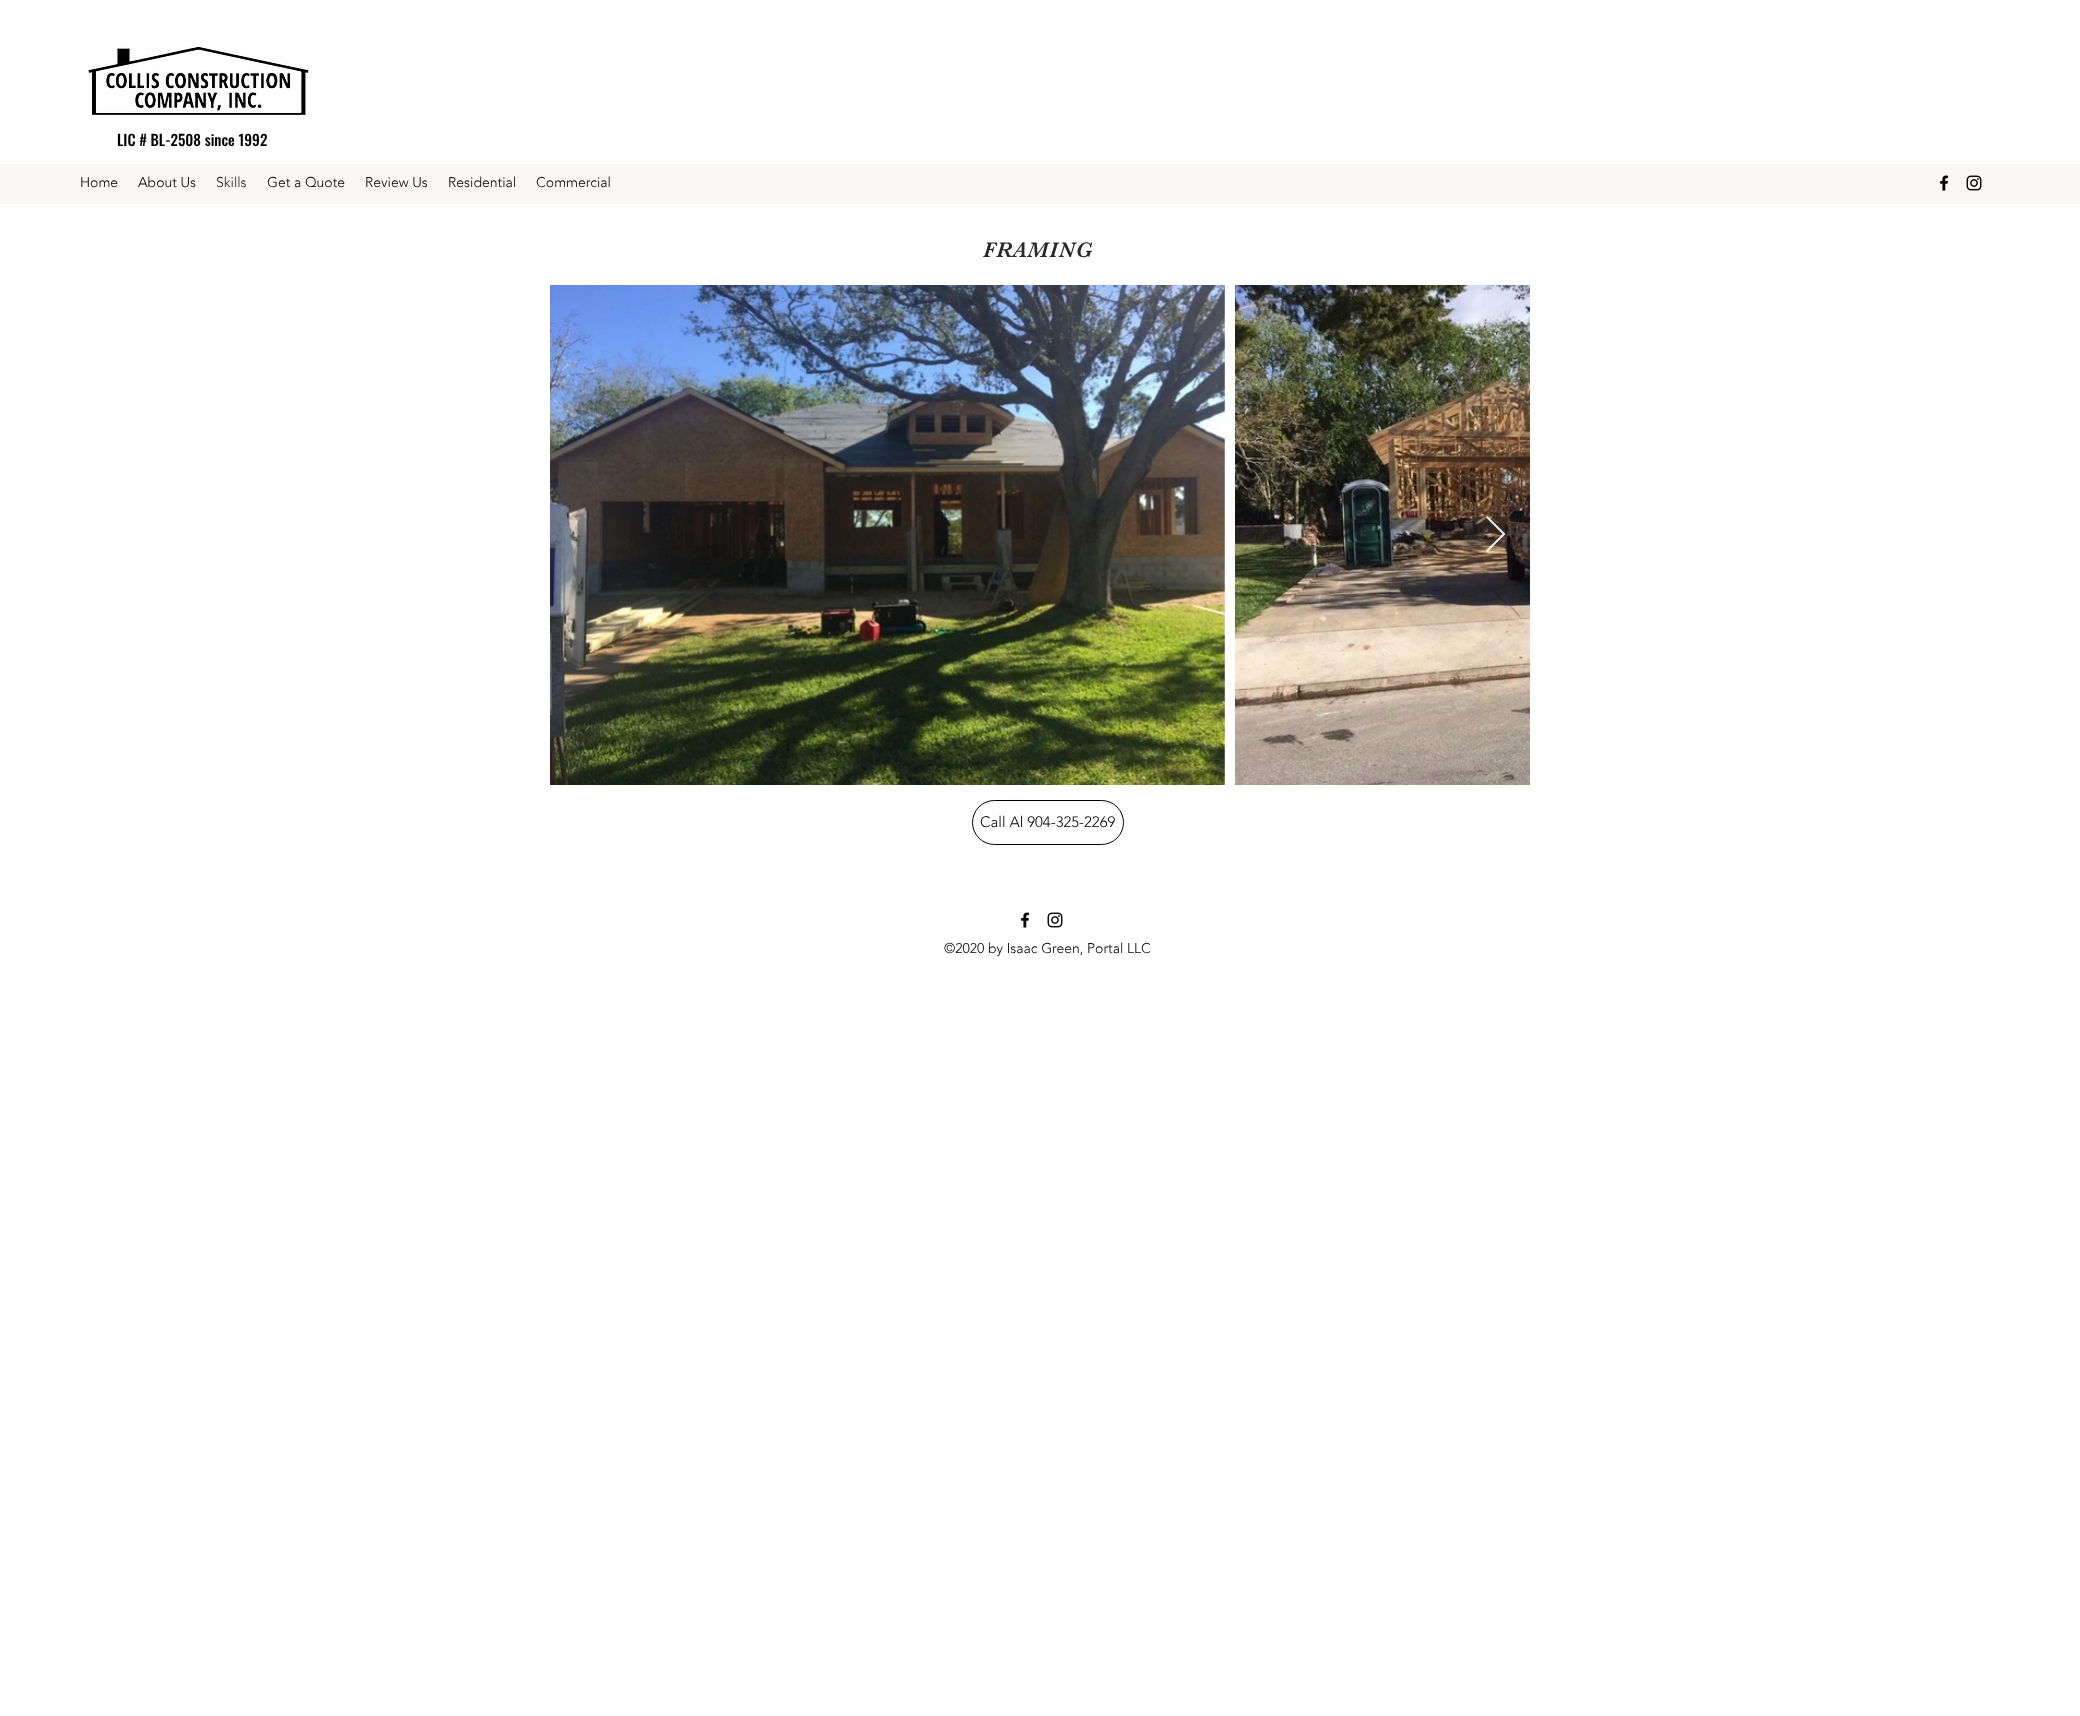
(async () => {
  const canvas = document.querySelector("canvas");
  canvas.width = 2080;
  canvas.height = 1716;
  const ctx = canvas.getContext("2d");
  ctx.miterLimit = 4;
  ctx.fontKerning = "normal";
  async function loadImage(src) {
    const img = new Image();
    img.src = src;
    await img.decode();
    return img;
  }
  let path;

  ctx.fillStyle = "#ffffff";
  ctx.fillRect(0, 0, 2080, 1716);
  ctx.drawImage(await loadImage("img/1.png"), 88, 46, 221, 69);
  ctx.fillStyle = "#faf7f5";
  ctx.fillRect(0, 164, 2080, 40);
  ctx.drawImage(await loadImage("img/2.png"), 1940, 175, 9, 16);
  ctx.drawImage(await loadImage("img/3.png"), 1966, 175, 16, 16);
  ctx.drawImage(await loadImage("img/4.png"), 550, 285, 675, 500);
  ctx.drawImage(await loadImage("img/5.png"), 1235, 285, 295, 500);
  ctx.fillStyle = "rgba(255, 255, 255, 0.9)";
  path = new Path2D("M1486 517.5L1487.5 516L1505.5 534L1487.5 552L1486 550.5L1502.5 534Z");
  ctx.fill(path);
  ctx.beginPath();
  ctx.roundRect(972.5, 800.5, 151, 44, 22);
  ctx.strokeStyle = "#000000";
  ctx.stroke();
  ctx.drawImage(await loadImage("img/6.png"), 1021, 912, 9, 16);
  ctx.drawImage(await loadImage("img/7.png"), 1047, 912, 16, 16);
  ctx.font = "500 15px Oswald";
  ctx.fillStyle = "#000000";
  ctx.fillText("LIC # BL-2508 since 1992", 117, 146);
  ctx.font = "300 14px 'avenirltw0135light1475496'";
  ctx.fillText("Home", 80, 187);
  ctx.fillText("About Us", 138, 187);
  ctx.fillStyle = "#191919";
  ctx.fillText("Skills", 216, 187);
  ctx.fillStyle = "#000000";
  for (const [text, x, y] of [
    ["Get a Quote", 267, 187],
    ["Review Us", 365, 187],
    ["Residential", 448, 187],
    ["Commercial", 536, 187],
  ]) {
    ctx.fillText(text, x, y);
  }
  ctx.letterSpacing = "1px";
  ctx.font = "22px 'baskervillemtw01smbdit'";
  ctx.fillStyle = "#292929";
  ctx.fillText("FRAMING", 983, 257);
  ctx.letterSpacing = "0px";
  ctx.font = "300 15px 'avenirltw0135light1475496'";
  ctx.fillStyle = "#000000";
  ctx.fillText("Call Al 904-325-2269", 980, 827);
  ctx.font = "300 14px 'avenirltw0135light1475496'";
  ctx.fillText("©2020 by Isaac Green, Portal LLC", 944, 953);
})();
